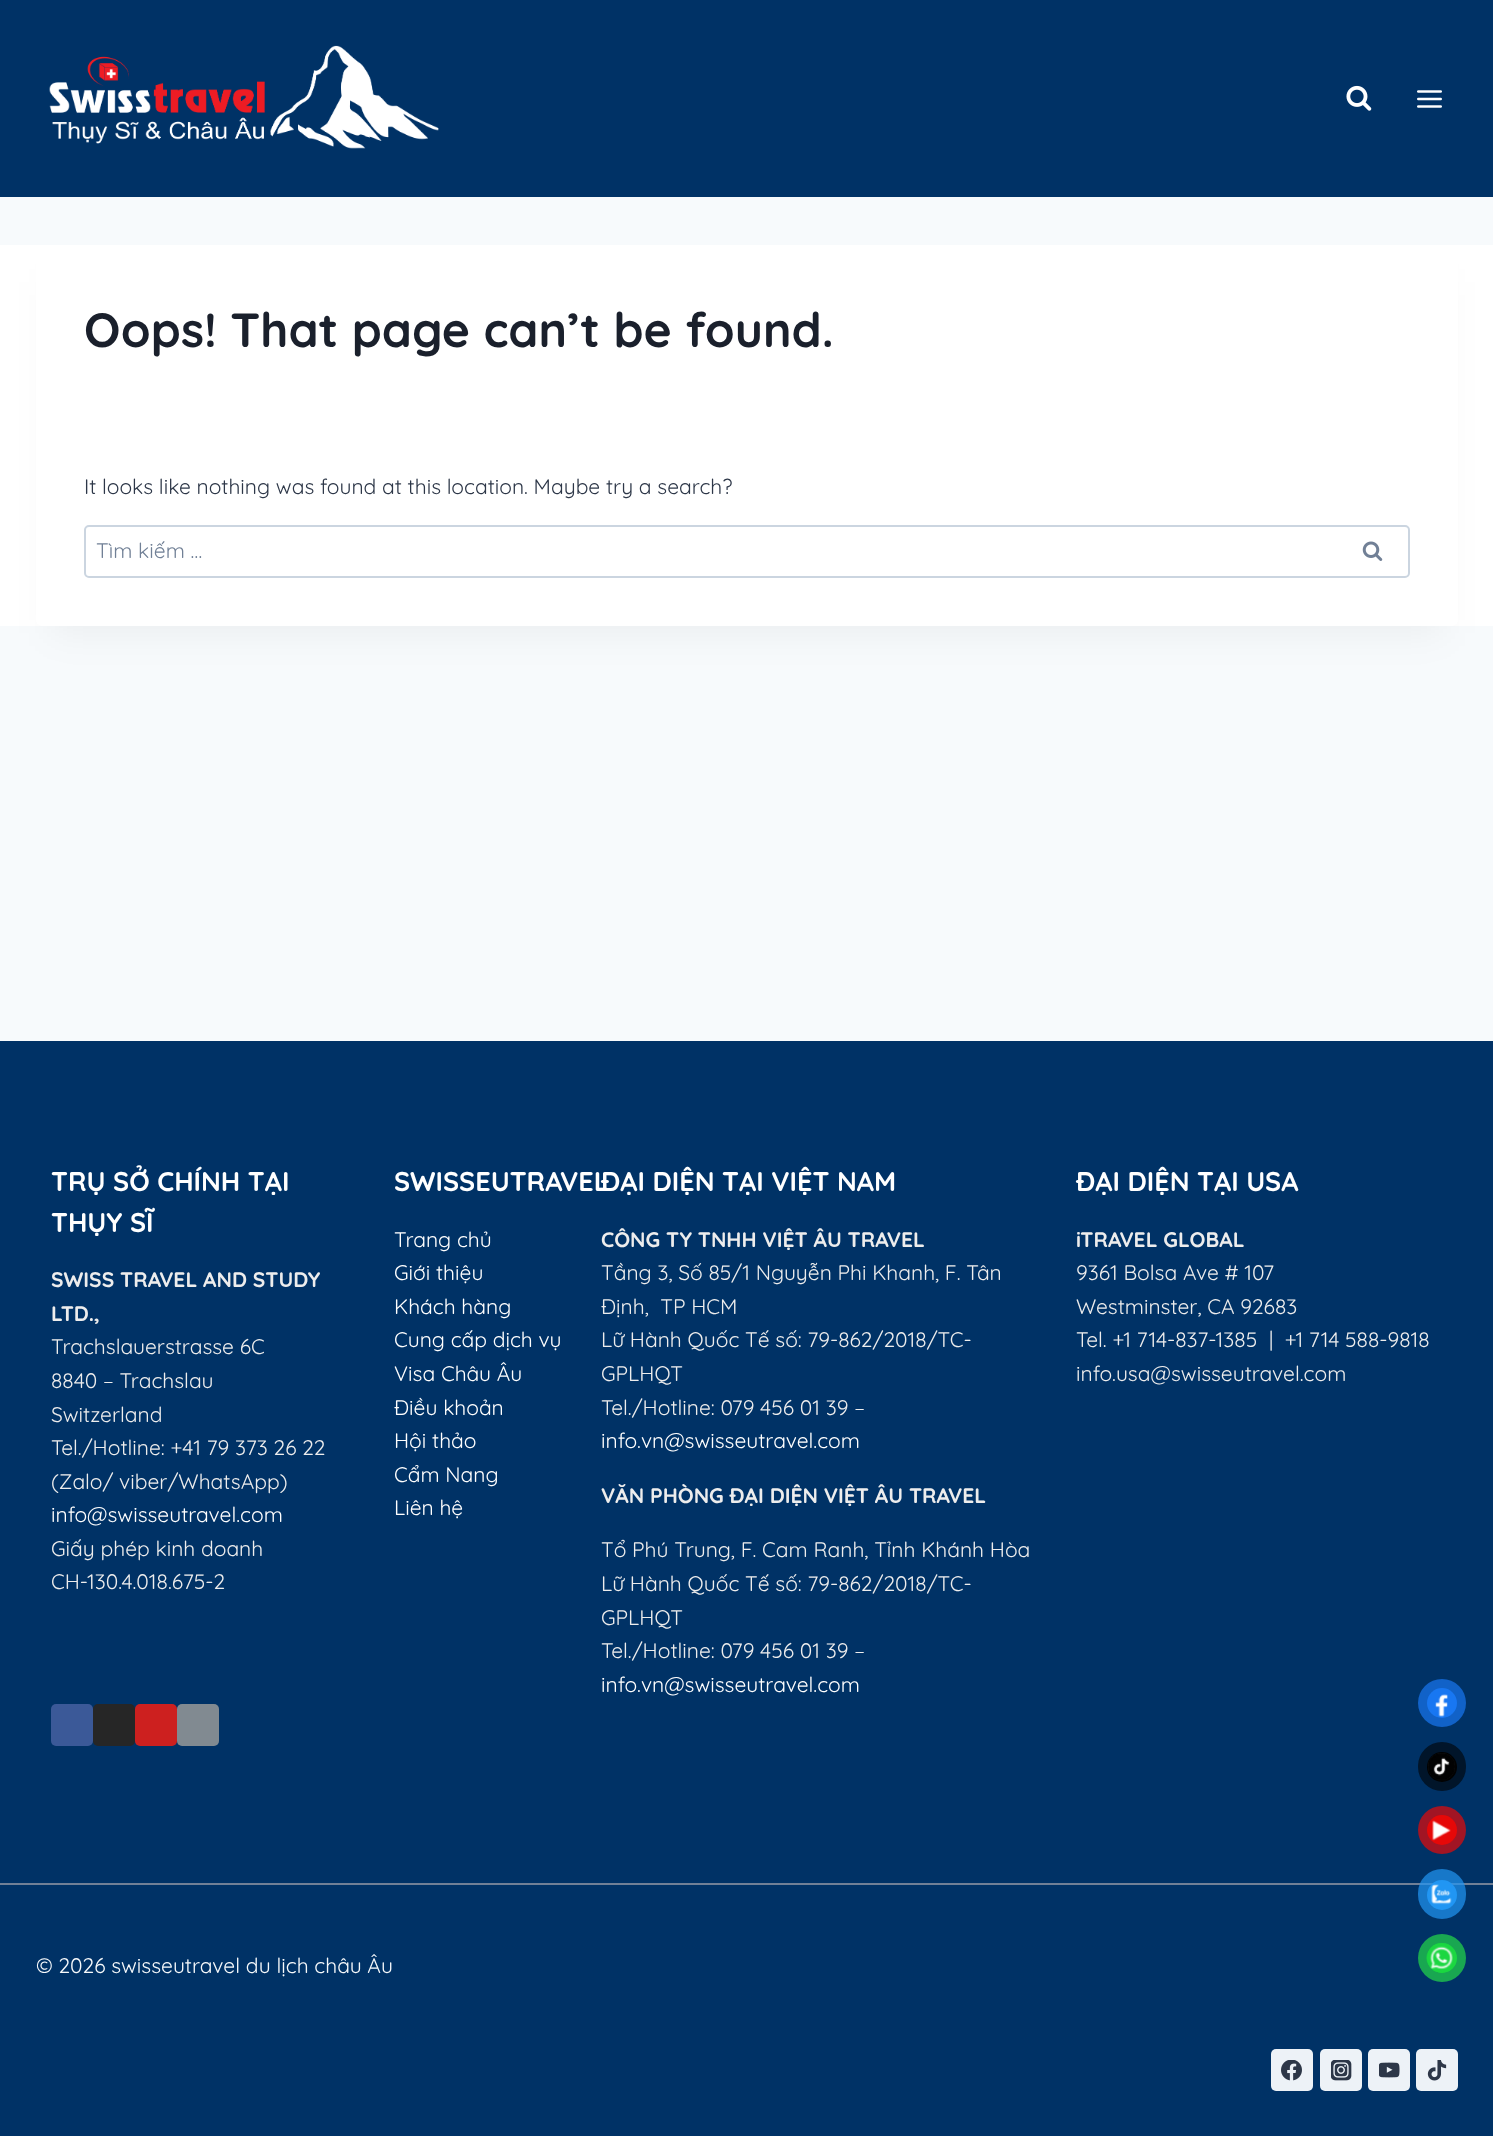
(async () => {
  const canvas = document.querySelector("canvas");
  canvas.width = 1493;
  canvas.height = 2136;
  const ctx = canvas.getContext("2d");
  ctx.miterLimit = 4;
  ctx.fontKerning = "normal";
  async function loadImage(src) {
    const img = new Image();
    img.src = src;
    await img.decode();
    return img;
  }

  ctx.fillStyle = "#f7fafc";
  ctx.fillRect(0, 0, 1493, 2136);
  ctx.fillStyle = "#003266";
  ctx.fillRect(0, 0, 1493, 197);
  ctx.drawImage(await loadImage("img/1.png"), 49, 45, 390, 104);
  ctx.drawImage(await loadImage("img/2.png"), 1346, 85, 26, 26);
  ctx.drawImage(await loadImage("img/3.png"), 1417, 90, 25, 18);
  ctx.fillStyle = "#ffffff";
  ctx.fillRect(0, 245, 1493, 381);
  ctx.fillStyle = "rgba(0, 0, 0, 0.05)";
  ctx.filter = "blur(19px)";
  ctx.beginPath();
  ctx.rect(51, 282, 1392, 351);
  ctx.fill();
  ctx.filter = "none";
  ctx.fillStyle = "#ffffff";
  ctx.beginPath();
  ctx.roundRect(36, 245, 1422, 381, 6);
  ctx.fill();
  ctx.beginPath();
  ctx.roundRect(85, 526, 1324, 51, 4);
  ctx.strokeStyle = "#cbd5e0";
  ctx.lineWidth = 2;
  ctx.stroke();
  ctx.drawImage(await loadImage("img/4.png"), 1362, 541, 21, 20);
  ctx.fillStyle = "#003266";
  ctx.fillRect(0, 1041, 1493, 842);
  ctx.fillStyle = "#3b5998";
  ctx.beginPath();
  ctx.roundRect(51, 1704, 42, 42, 5);
  ctx.fill();
  ctx.fillStyle = "#262626";
  ctx.beginPath();
  ctx.roundRect(93, 1704, 42, 42, 5);
  ctx.fill();
  ctx.fillStyle = "#cd201f";
  ctx.beginPath();
  ctx.roundRect(135, 1704, 42, 42, 5);
  ctx.fill();
  ctx.fillStyle = "#818a91";
  ctx.beginPath();
  ctx.roundRect(177, 1704, 42, 42, 5);
  ctx.fill();
  ctx.fillStyle = "#003266";
  ctx.fillRect(0, 1885, 1493, 251);
  ctx.fillStyle = "#718096";
  ctx.fillRect(0, 1883, 1493, 2);
  ctx.fillStyle = "#edf2f7";
  ctx.beginPath();
  ctx.roundRect(1271, 2049, 42, 42, 5);
  ctx.fill();
  ctx.drawImage(await loadImage("img/5.png"), 1281, 2060, 21, 21);
  ctx.beginPath();
  ctx.roundRect(1320, 2049, 42, 42, 5);
  ctx.fill();
  ctx.drawImage(await loadImage("img/6.png"), 1331, 2060, 21, 21);
  ctx.beginPath();
  ctx.roundRect(1368, 2049, 42, 42, 5);
  ctx.fill();
  ctx.drawImage(await loadImage("img/7.png"), 1379, 2062, 21, 16);
  ctx.beginPath();
  ctx.roundRect(1416, 2049, 42, 42, 5);
  ctx.fill();
  ctx.drawImage(await loadImage("img/8.png"), 1427, 2060, 20, 21);
  ctx.fillStyle = "#1162c8";
  ctx.beginPath();
  ctx.arc(1442, 1703, 24, 0, Math.PI * 2);
  ctx.fill();
  ctx.fillStyle = "#1877f2";
  ctx.beginPath();
  ctx.arc(1442, 1703, 15, 0, Math.PI * 2);
  ctx.fill();
  ctx.drawImage(await loadImage("img/9.png"), 1435, 1694, 13, 23);
  ctx.fillStyle = "#01152a";
  ctx.beginPath();
  ctx.roundRect(1418, 1742, 48, 49, 24);
  ctx.fill();
  ctx.fillStyle = "#020202";
  ctx.beginPath();
  ctx.arc(1442, 1767, 15, 0, Math.PI * 2);
  ctx.fill();
  ctx.drawImage(await loadImage("img/10.png"), 1428, 1753, 27, 27);
  ctx.fillStyle = "#a11524";
  ctx.beginPath();
  ctx.arc(1442, 1830, 24, 0, Math.PI * 2);
  ctx.fill();
  ctx.fillStyle = "#e60808";
  ctx.beginPath();
  ctx.arc(1442, 1830, 15, 0, Math.PI * 2);
  ctx.fill();
  ctx.drawImage(await loadImage("img/11.png"), 1432, 1820, 19, 21);
  ctx.fillStyle = "rgba(33, 150, 243, 0.7)";
  ctx.beginPath();
  ctx.roundRect(1418, 1869, 48, 50, 24);
  ctx.fill();
  ctx.fillStyle = "#2196f3";
  ctx.beginPath();
  ctx.arc(1442, 1895, 15, 0, Math.PI * 2);
  ctx.fill();
  ctx.drawImage(await loadImage("img/12.png"), 1431, 1884, 21, 21);
  ctx.fillStyle = "#19a751";
  ctx.beginPath();
  ctx.arc(1442, 1958, 24, 0, Math.PI * 2);
  ctx.fill();
  ctx.fillStyle = "#1cd741";
  ctx.beginPath();
  ctx.arc(1442, 1958, 15, 0, Math.PI * 2);
  ctx.fill();
  ctx.drawImage(await loadImage("img/13.png"), 1426, 1943, 27, 30);
  ctx.font = "bold 48px Quicksand";
  ctx.fillStyle = "#1a202c";
  ctx.fillText("Oops! That page can’t be found.", 84, 347);
  ctx.font = "21px Quicksand";
  ctx.fillStyle = "#2d3748";
  ctx.fillText("It looks like nothing was found at this location. Maybe try a search?", 84, 494);
  ctx.fillStyle = "#718096";
  ctx.fillText("Tìm kiếm …", 96, 558);
  ctx.font = "bold 27px Quicksand";
  ctx.fillStyle = "#ffffff";
  ctx.fillText("TRỤ SỞ CHÍNH TẠI", 51, 1191);
  ctx.fillText("THỤY SĨ", 51, 1232);
  ctx.font = "bold 21px Quicksand";
  ctx.fillStyle = "#ededed";
  ctx.fillText("SWISS TRAVEL AND STUDY", 51, 1287);
  ctx.fillText("LTD.,", 51, 1321);
  ctx.font = "21px Quicksand";
  for (const [text, x, y] of [
    ["Trachslauerstrasse 6C", 51, 1354],
    ["8840 – Trachslau", 51, 1388],
    ["Switzerland", 51, 1422],
    ["Tel./Hotline: +41 79 373 26 22", 51, 1455],
    ["(Zalo/ viber/WhatsApp)", 51, 1489],
  ]) {
    ctx.fillText(text, x, y);
  }
  ctx.fillStyle = "#ffffff";
  ctx.fillText("info@swisseutravel.com", 51, 1522);
  ctx.fillStyle = "#ededed";
  ctx.fillText("Giấy phép kinh doanh", 51, 1556);
  ctx.fillText("CH-130.4.018.675-2", 51, 1589);
  ctx.font = "bold 27px Quicksand";
  ctx.fillStyle = "#ffffff";
  ctx.fillText("SWISSEUTRAVEL", 394, 1191);
  ctx.font = "21px Quicksand";
  for (const [text, x, y] of [
    ["Trang chủ", 394, 1247],
    ["Giới thiệu", 394, 1280],
    ["Khách hàng", 394, 1314],
    ["Cung cấp dịch vụ", 394, 1347],
    ["Visa Châu Âu", 394, 1381],
    ["Điều khoản", 394, 1415],
    ["Hội thảo", 394, 1448],
    ["Cẩm Nang", 394, 1482],
    ["Liên hệ", 394, 1515],
  ]) {
    ctx.fillText(text, x, y);
  }
  ctx.font = "bold 27px Quicksand";
  ctx.fillText("ĐẠI DIỆN TẠI VIỆT NAM", 601, 1191);
  ctx.font = "bold 21px Quicksand";
  ctx.fillStyle = "#ededed";
  ctx.fillText("CÔNG TY TNHH VIỆT ÂU TRAVEL", 601, 1247);
  ctx.font = "21px Quicksand";
  for (const [text, x, y] of [
    ["Tầng 3, Số 85/1 Nguyễn Phi Khanh, F. Tân", 601, 1280],
    ["Định,  TP HCM", 601, 1314],
    ["Lữ Hành Quốc Tế số: 79-862/2018/TC-", 601, 1347],
    ["GPLHQT", 601, 1381],
    ["Tel./Hotline: 079 456 01 39 –", 601, 1415],
  ]) {
    ctx.fillText(text, x, y);
  }
  ctx.fillStyle = "#ffffff";
  ctx.fillText("info.vn@swisseutravel.com", 601, 1448);
  ctx.font = "bold 21px Quicksand";
  ctx.fillStyle = "#ededed";
  ctx.fillText("VĂN PHÒNG ĐẠI DIỆN VIỆT ÂU TRAVEL", 601, 1503);
  ctx.font = "21px Quicksand";
  for (const [text, x, y] of [
    ["Tổ Phú Trung, F. Cam Ranh, Tỉnh Khánh Hòa", 601, 1557],
    ["Lữ Hành Quốc Tế số: 79-862/2018/TC-", 601, 1591],
    ["GPLHQT", 601, 1625],
    ["Tel./Hotline: 079 456 01 39 –", 601, 1658],
  ]) {
    ctx.fillText(text, x, y);
  }
  ctx.fillStyle = "#ffffff";
  ctx.fillText("info.vn@swisseutravel.com", 601, 1692);
  ctx.font = "bold 27px Quicksand";
  ctx.fillText("ĐẠI DIỆN TẠI USA", 1076, 1191);
  ctx.font = "bold 21px Quicksand";
  ctx.fillStyle = "#ededed";
  ctx.fillText("iTRAVEL GLOBAL", 1076, 1247);
  ctx.font = "21px Quicksand";
  for (const [text, x, y] of [
    ["9361 Bolsa Ave # 107", 1076, 1280],
    ["Westminster, CA 92683", 1076, 1314],
    ["Tel. +1 714-837-1385", 1076, 1347],
    ["|  +1 714 588-9818", 1269, 1347],
    ["info.usa@swisseutravel.com", 1076, 1381],
  ]) {
    ctx.fillText(text, x, y);
  }
  ctx.fillStyle = "#f7fafc";
  ctx.fillText("© 2026 swisseutravel du lịch châu Âu", 36, 1973);
})();
